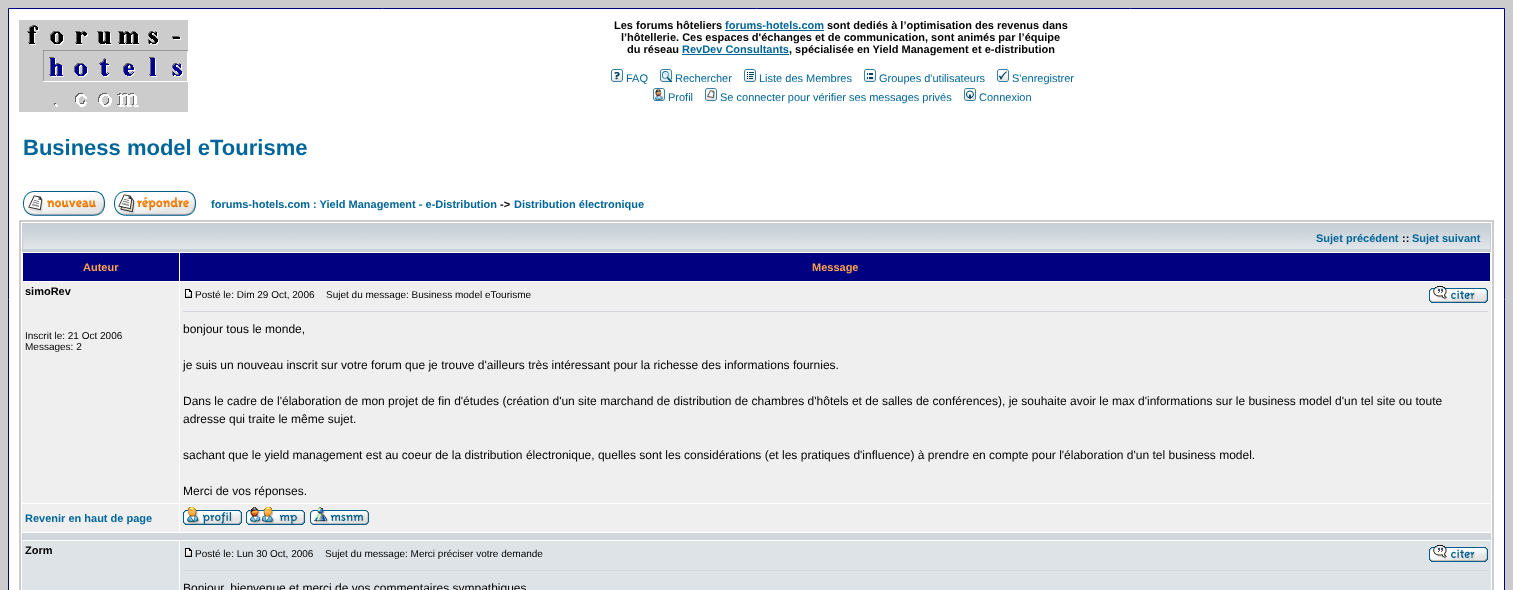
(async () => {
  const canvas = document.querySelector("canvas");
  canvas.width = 1513;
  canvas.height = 590;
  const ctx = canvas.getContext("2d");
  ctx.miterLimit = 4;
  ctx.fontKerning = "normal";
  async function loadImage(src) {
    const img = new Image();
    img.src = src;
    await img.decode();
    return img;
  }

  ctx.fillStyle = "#cccccc";
  ctx.fillRect(0, 0, 1513, 590);
  ctx.fillStyle = "#ffffff";
  ctx.beginPath();
  ctx.rect(8.5, 8.5, 1496, 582);
  ctx.fill();
  ctx.strokeStyle = "#000080";
  ctx.stroke();
  ctx.drawImage(await loadImage("img/1.png"), 19, 20, 169, 92);
  ctx.fillStyle = "#006699";
  ctx.fillRect(725, 30, 99, 1);
  ctx.fillRect(682, 54, 107, 1);
  ctx.drawImage(await loadImage("img/2.png"), 611, 69, 12, 13);
  ctx.drawImage(await loadImage("img/3.png"), 660, 69, 12, 13);
  ctx.drawImage(await loadImage("img/4.png"), 744, 69, 12, 13);
  ctx.drawImage(await loadImage("img/5.png"), 864, 69, 12, 13);
  ctx.drawImage(await loadImage("img/6.png"), 997, 69, 12, 13);
  ctx.drawImage(await loadImage("img/7.png"), 653, 88, 12, 13);
  ctx.drawImage(await loadImage("img/8.png"), 705, 88, 12, 13);
  ctx.drawImage(await loadImage("img/9.png"), 964, 88, 12, 13);
  ctx.drawImage(await loadImage("img/10.png"), 23, 191, 82, 25);
  ctx.drawImage(await loadImage("img/11.png"), 114, 191, 82, 25);
  ctx.strokeStyle = "#cccccc";
  ctx.lineWidth = 2;
  ctx.strokeRect(20, 221, 1473, 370);
  ctx.drawImage(await loadImage("img/12.png"), 23, 224, 1467, 28);
  for (const [x, y, w, h, color] of [
    [22, 223, 1469, 1, "#cccccc"],
    [1490, 223, 1, 29, "#cccccc"],
    [22, 223, 1, 29, "#cccccc"],
    [23, 253, 156, 28, "#000080"],
    [180, 253, 1310, 28, "#000080"],
    [22, 282, 157, 221, "#efefef"],
    [180, 282, 1311, 221, "#efefef"],
  ]) {
    ctx.fillStyle = color;
    ctx.fillRect(x, y, w, h);
  }
  ctx.drawImage(await loadImage("img/13.png"), 185, 289, 7, 9);
  ctx.drawImage(await loadImage("img/14.png"), 1429, 286, 59, 17);
  for (const [x, y, w, h, color] of [
    [183, 311, 1305, 1, "#d1d7dc"],
    [22, 504, 157, 28, "#efefef"],
    [180, 504, 1311, 28, "#efefef"],
  ]) {
    ctx.fillStyle = color;
    ctx.fillRect(x, y, w, h);
  }
  ctx.drawImage(await loadImage("img/15.png"), 183, 507, 59, 18);
  ctx.drawImage(await loadImage("img/16.png"), 246, 507, 59, 18);
  ctx.drawImage(await loadImage("img/17.png"), 310, 507, 59, 18);
  for (const [x, y, w, h, color] of [
    [23, 533, 1467, 7, "#d1d7dc"],
    [1490, 533, 1, 7, "#cccccc"],
    [22, 533, 1, 7, "#cccccc"],
    [22, 541, 157, 49, "#dee3e7"],
    [180, 541, 1311, 49, "#dee3e7"],
  ]) {
    ctx.fillStyle = color;
    ctx.fillRect(x, y, w, h);
  }
  ctx.drawImage(await loadImage("img/18.png"), 185, 548, 7, 9);
  ctx.drawImage(await loadImage("img/19.png"), 1429, 545, 59, 17);
  ctx.fillStyle = "#d1d7dc";
  ctx.fillRect(183, 570, 1305, 1);
  ctx.font = "bold 11px Liberation Sans";
  ctx.fillStyle = "#000000";
  ctx.fillText("Les forums hôteliers", 614, 29);
  ctx.fillStyle = "#006699";
  ctx.fillText("forums-hotels.com", 725, 29);
  ctx.fillStyle = "#000000";
  for (const [text, x, y] of [
    ["sont dediés à l’optimisation des revenus dans", 827, 29],
    ["l’hôtellerie. Ces espaces d'échanges et de communication, sont animés par l’équipe", 621, 41],
    ["du réseau", 627, 53],
  ]) {
    ctx.fillText(text, x, y);
  }
  ctx.fillStyle = "#006699";
  ctx.fillText("RevDev Consultants", 682, 53);
  ctx.fillStyle = "#000000";
  ctx.fillText(", spécialisée en Yield Management et e-distribution", 789, 53);
  ctx.font = "11px Liberation Sans";
  ctx.fillStyle = "#006699";
  for (const [text, x, y] of [
    ["FAQ", 626, 82],
    ["Rechercher", 675, 82],
    ["Liste des Membres", 759, 82],
    ["Groupes d'utilisateurs", 879, 82],
    ["S'enregistrer", 1012, 82],
    ["Profil", 668, 101],
    ["Se connecter pour vérifier ses messages privés", 720, 101],
    ["Connexion", 979, 101],
  ]) {
    ctx.fillText(text, x, y);
  }
  ctx.font = "bold 22px Liberation Sans";
  ctx.fillText("Business model eTourisme", 23, 155);
  ctx.font = "bold 11px Liberation Sans";
  ctx.fillText("forums-hotels.com : Yield Management - e-Distribution", 211, 208);
  ctx.fillStyle = "#000000";
  ctx.fillText("->", 500, 208);
  ctx.fillStyle = "#006699";
  ctx.fillText("Distribution électronique", 514, 208);
  ctx.fillText("Sujet précédent", 1316, 242);
  ctx.fillStyle = "#000000";
  ctx.fillText("::", 1402, 242);
  ctx.fillStyle = "#006699";
  ctx.fillText("Sujet suivant", 1412, 242);
  ctx.fillStyle = "#ffa34f";
  ctx.fillText("Auteur", 83, 271);
  ctx.fillText("Message", 812, 271);
  ctx.fillStyle = "#000000";
  ctx.fillText("simoRev", 25, 295);
  ctx.font = "10px Liberation Sans";
  for (const [text, x, y] of [
    ["Inscrit le: 21 Oct 2006", 25, 339],
    ["Messages: 2", 25, 350],
    ["Posté le: Dim 29 Oct, 2006", 195, 298],
    ["Sujet du message: Business model eTourisme", 326, 298],
  ]) {
    ctx.fillText(text, x, y);
  }
  ctx.font = "12px Liberation Sans";
  for (const [text, x, y] of [
    ["bonjour tous le monde,", 183, 333],
    ["je suis un nouveau inscrit sur votre forum que je trouve d'ailleurs très intéressant pour la richesse des informations fournies.", 183, 369],
    ["Dans le cadre de l'élaboration de mon projet de fin d'études (création d'un site marchand de distribution de chambres d'hôtels et de salles de conférences), je souhaite avoir le max d'informations sur le business model d'un tel site ou toute", 183, 405],
    ["adresse qui traite le même sujet.", 183, 423],
    ["sachant que le yield management est au coeur de la distribution électronique, quelles sont les considérations (et les pratiques d'influence) à prendre en compte pour l'élaboration d'un tel business model.", 183, 459],
    ["Merci de vos réponses.", 183, 495],
  ]) {
    ctx.fillText(text, x, y);
  }
  ctx.font = "bold 11px Liberation Sans";
  ctx.fillStyle = "#006699";
  ctx.fillText("Revenir en haut de page", 25, 522);
  ctx.fillStyle = "#000000";
  ctx.fillText("Zorm", 25, 554);
  ctx.font = "10px Liberation Sans";
  ctx.fillText("Posté le: Lun 30 Oct, 2006", 195, 557);
  ctx.fillText("Sujet du message: Merci préciser votre demande", 325, 557);
  ctx.font = "12px Liberation Sans";
  ctx.fillText("Bonjour, bienvenue et merci de vos commentaires sympathiques", 183, 592);
})();
